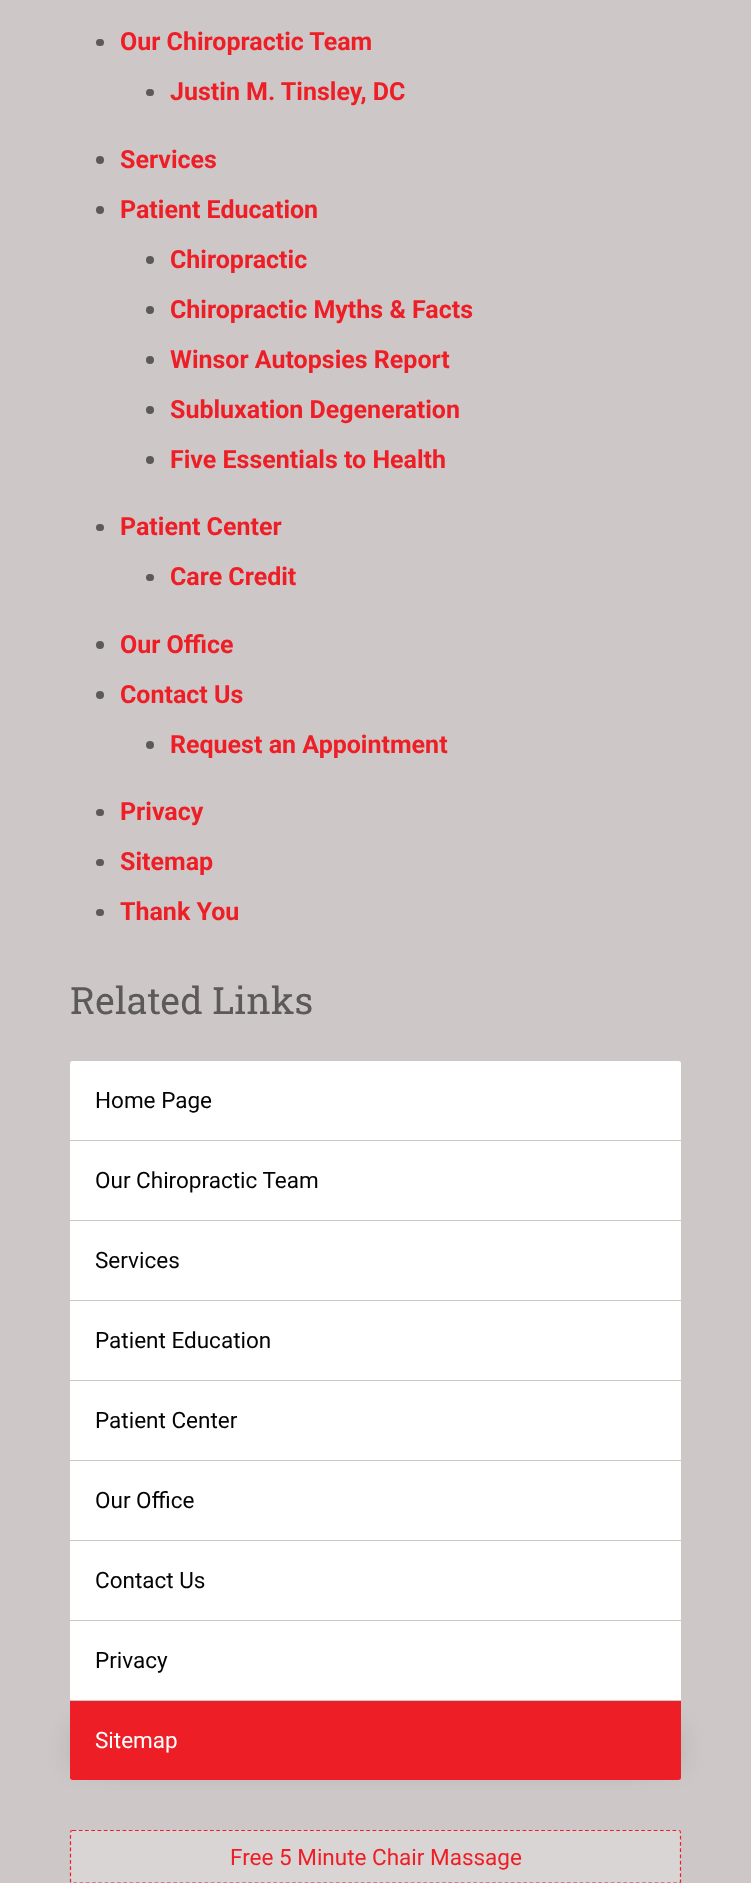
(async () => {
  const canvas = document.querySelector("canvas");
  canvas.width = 751;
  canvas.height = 1883;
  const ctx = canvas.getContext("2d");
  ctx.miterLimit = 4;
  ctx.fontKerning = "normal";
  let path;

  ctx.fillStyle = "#cec7c7";
  ctx.fillRect(0, 0, 751, 1883);
  ctx.fillStyle = "#5c5959";
  ctx.beginPath();
  ctx.roundRect(96, 39, 8, 7, 3.5);
  ctx.fill();
  ctx.beginPath();
  ctx.roundRect(146, 89, 8, 7, 3.5);
  ctx.fill();
  ctx.beginPath();
  ctx.arc(100, 160, 4, 0, Math.PI * 2);
  ctx.fill();
  ctx.beginPath();
  ctx.arc(100, 210, 4, 0, Math.PI * 2);
  ctx.fill();
  ctx.beginPath();
  ctx.arc(150, 260, 4, 0, Math.PI * 2);
  ctx.fill();
  ctx.beginPath();
  ctx.arc(150, 310, 4, 0, Math.PI * 2);
  ctx.fill();
  ctx.beginPath();
  ctx.arc(150, 360, 4, 0, Math.PI * 2);
  ctx.fill();
  ctx.beginPath();
  ctx.arc(150, 410, 4, 0, Math.PI * 2);
  ctx.fill();
  ctx.beginPath();
  ctx.arc(150, 460, 4, 0, Math.PI * 2);
  ctx.fill();
  ctx.beginPath();
  ctx.roundRect(96, 524, 8, 7, 3.5);
  ctx.fill();
  ctx.beginPath();
  ctx.roundRect(146, 574, 8, 7, 3.5);
  ctx.fill();
  ctx.beginPath();
  ctx.arc(100, 645, 4, 0, Math.PI * 2);
  ctx.fill();
  ctx.beginPath();
  ctx.arc(100, 695, 4, 0, Math.PI * 2);
  ctx.fill();
  ctx.beginPath();
  ctx.arc(150, 745, 4, 0, Math.PI * 2);
  ctx.fill();
  ctx.beginPath();
  ctx.roundRect(96, 809, 8, 7, 3.5);
  ctx.fill();
  ctx.beginPath();
  ctx.roundRect(96, 859, 8, 7, 3.5);
  ctx.fill();
  ctx.beginPath();
  ctx.roundRect(96, 909, 8, 7, 3.5);
  ctx.fill();
  ctx.fillStyle = "#ffffff";
  ctx.beginPath();
  ctx.roundRect(70, 1061, 611, 719, 2.5);
  ctx.fill();
  for (const [x, y, w, h, color] of [
    [70, 1140, 611, 1, "#cec7c7"],
    [70, 1220, 611, 1, "#cec7c7"],
    [70, 1300, 611, 1, "#cec7c7"],
    [70, 1380, 611, 1, "#cec7c7"],
    [70, 1460, 611, 1, "#cec7c7"],
    [70, 1540, 611, 1, "#cec7c7"],
    [70, 1620, 611, 1, "#cec7c7"],
    [70, 1700, 611, 1, "#cec7c7"],
  ]) {
    ctx.fillStyle = color;
    ctx.fillRect(x, y, w, h);
  }
  ctx.fillStyle = "rgba(0, 0, 0, 0.1)";
  ctx.filter = "blur(12.5px)";
  ctx.beginPath();
  ctx.rect(70, 1726, 574, 42);
  ctx.fill();
  ctx.filter = "none";
  ctx.filter = "blur(12.5px)";
  ctx.beginPath();
  ctx.rect(108, 1726, 573, 42);
  ctx.fill();
  ctx.filter = "none";
  ctx.fillStyle = "#ed1e25";
  ctx.beginPath();
  ctx.roundRect(70, 1701, 611, 79, [0, 0, 2.5, 2.5]);
  ctx.fill();
  ctx.fillStyle = "#dad5d5";
  ctx.beginPath();
  ctx.roundRect(70, 1830, 611, 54, 2.5);
  ctx.fill();
  path = new Path2D("M72.5 1830.5H679C680 1830.5 680.5 1831.5 680.5 1832.5V1881C680.5 1882.5 680 1883 679 1883H72.5C71.5 1883 70.5 1882.5 70.5 1881V1832.5C70.5 1831.5 71.5 1830.5 72.5 1830.5Z");
  ctx.strokeStyle = "#ed1e25";
  ctx.lineWidth = 1.2;
  ctx.setLineDash([3.75, 2.5]);
  ctx.stroke(path);
  ctx.font = "bold 25px Roboto";
  ctx.fillStyle = "#ed1e25";
  for (const [text, x, y] of [
    ["Our Chiropractic Team", 120, 50],
    ["Justin M. Tinsley, DC", 170, 100],
    ["Services", 120, 168],
    ["Patient Education", 120, 218],
    ["Chiropractic", 170, 268],
    ["Chiropractic Myths & Facts", 170, 318],
    ["Winsor Autopsies Report", 170, 368],
    ["Subluxation Degeneration", 170, 418],
    ["Five Essentials to Health", 170, 468],
    ["Patient Center", 120, 535],
    ["Care Credit", 170, 585],
    ["Our Office", 120, 653],
    ["Contact Us", 120, 703],
    ["Request an Appointment", 170, 753],
    ["Privacy", 120, 820],
    ["Sitemap", 120, 870],
    ["Thank You", 120, 920],
  ]) {
    ctx.fillText(text, x, y);
  }
  ctx.font = "37.5px Roboto Slab";
  ctx.fillStyle = "#5c5959";
  ctx.fillText("Related Links", 70, 1014);
  ctx.font = "22.5px Roboto";
  ctx.fillStyle = "#030402";
  for (const [text, x, y] of [
    ["Home Page", 95, 1108],
    ["Our Chiropractic Team", 95, 1188],
    ["Services", 95, 1268],
    ["Patient Education", 95, 1348],
    ["Patient Center", 95, 1428],
    ["Our Office", 95, 1508],
    ["Contact Us", 95, 1588],
    ["Privacy", 95, 1668],
  ]) {
    ctx.fillText(text, x, y);
  }
  ctx.fillStyle = "#ffffff";
  ctx.fillText("Sitemap", 95, 1748);
  ctx.fillStyle = "#ed1e25";
  ctx.fillText("Free 5 Minute Chair Massage", 230, 1865);
})();
